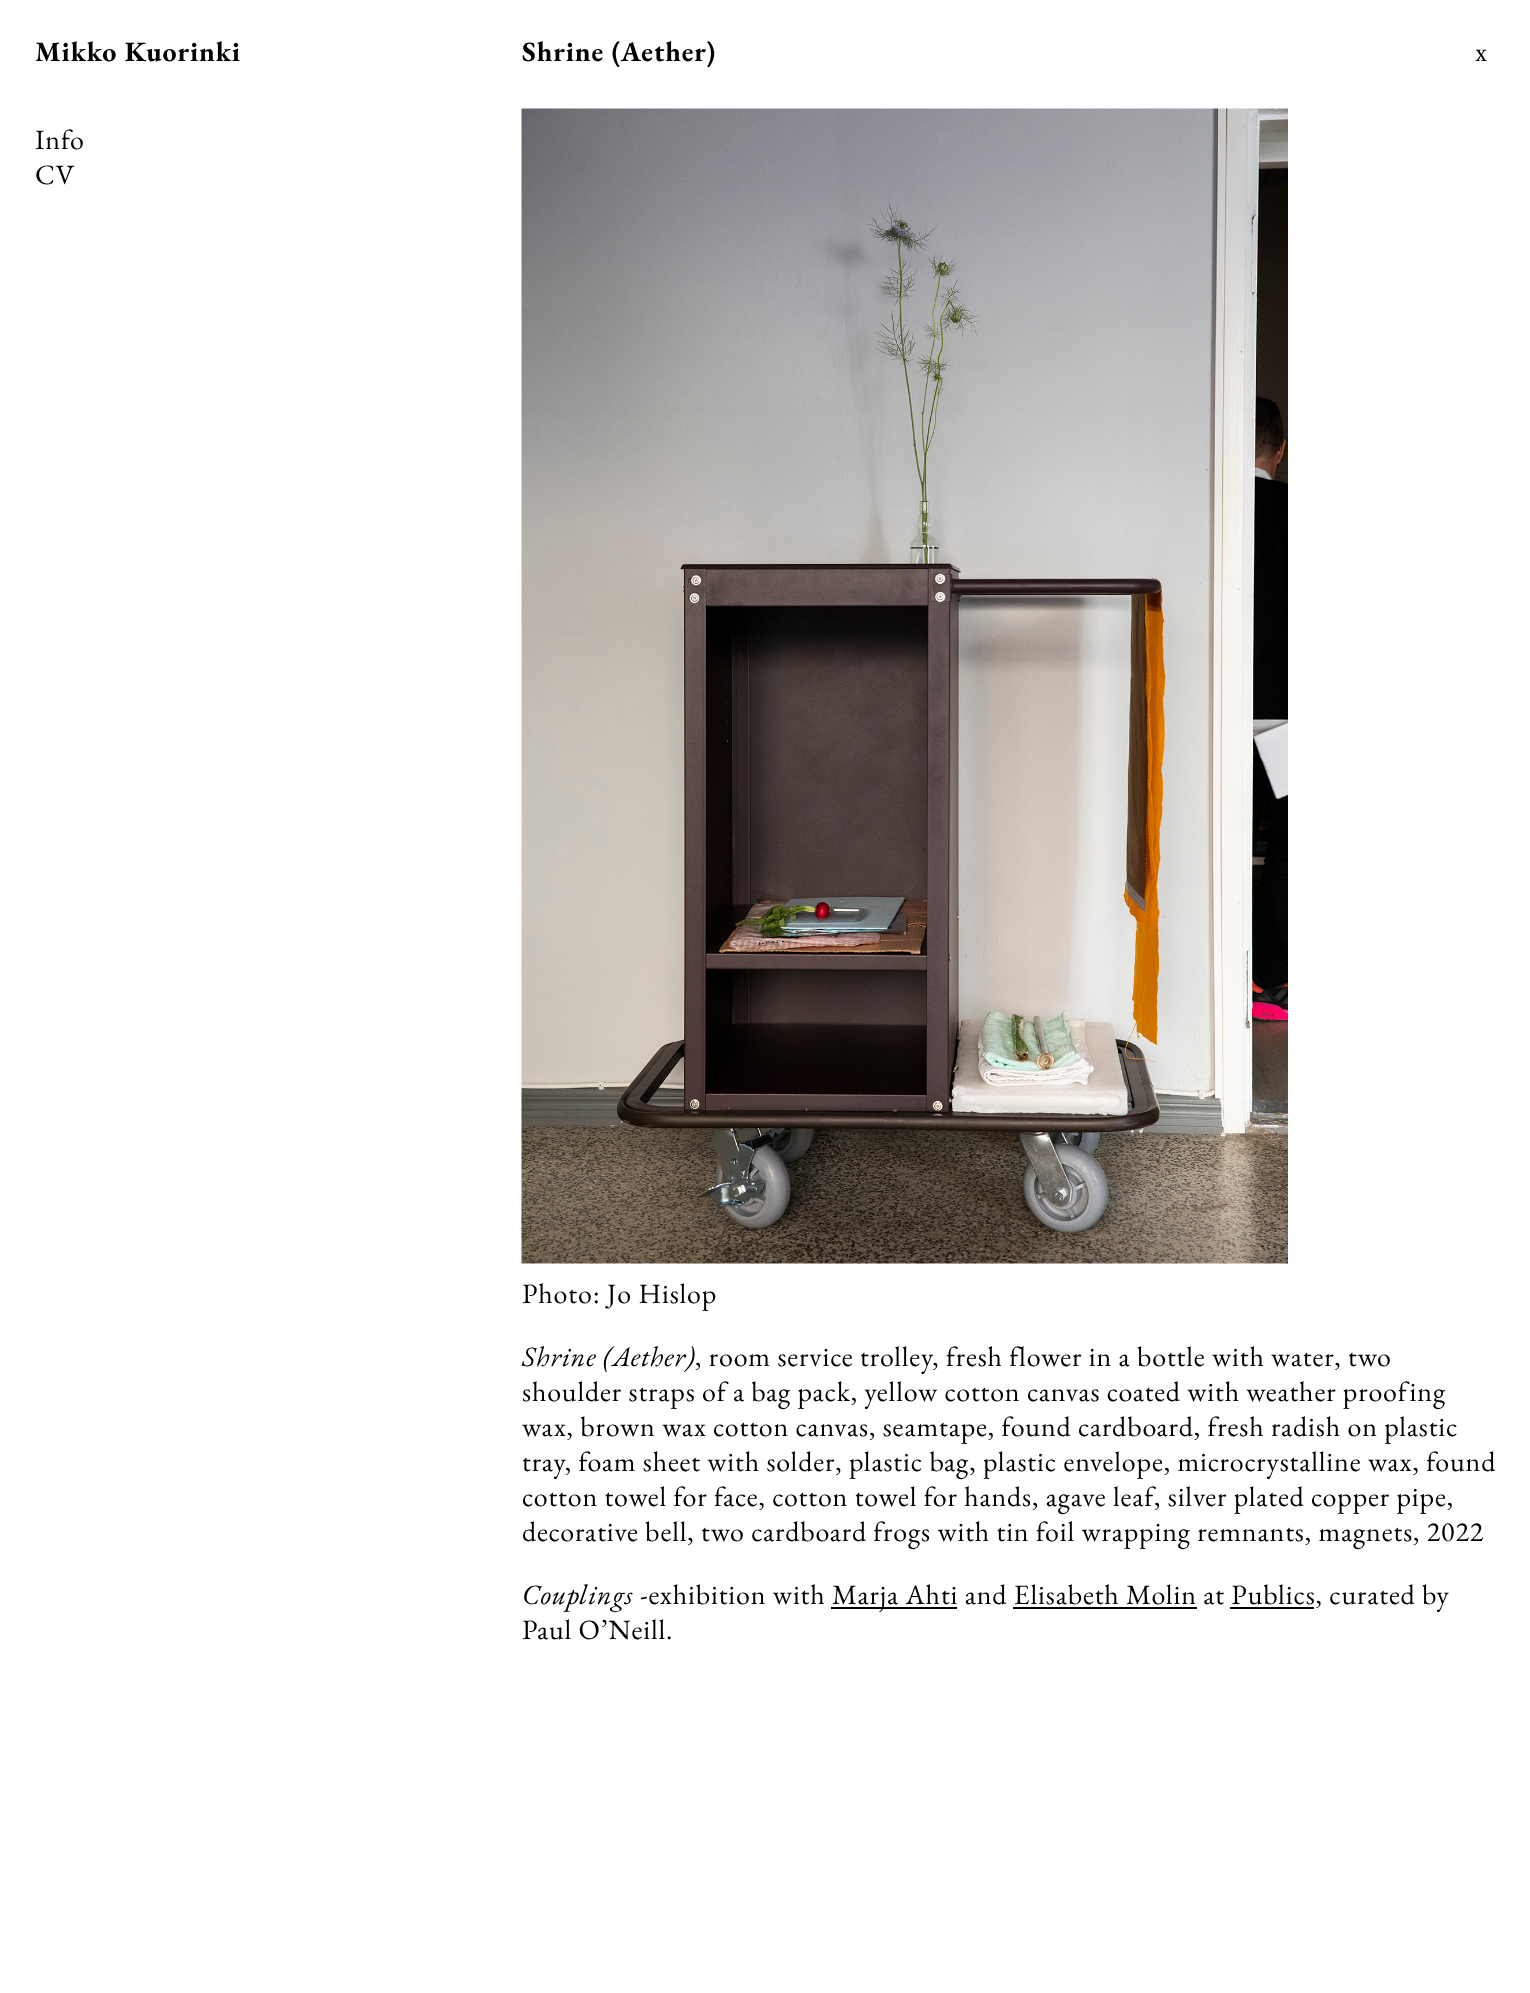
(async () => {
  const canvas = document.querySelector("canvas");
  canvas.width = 1530;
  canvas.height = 1993;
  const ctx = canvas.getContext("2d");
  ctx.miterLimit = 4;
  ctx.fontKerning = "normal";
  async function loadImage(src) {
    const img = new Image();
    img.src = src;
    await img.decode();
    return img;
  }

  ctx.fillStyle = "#ffffff";
  ctx.fillRect(0, 0, 1530, 1993);
  ctx.drawImage(await loadImage("img/1.png"), 521, 108, 767, 1156);
  for (const [x, y, w, h, color] of [
    [831, 1607, 126, 2, "#000000"],
    [1013, 1607, 184, 2, "#000000"],
    [1230, 1607, 84, 2, "#000000"],
  ]) {
    ctx.fillStyle = color;
    ctx.fillRect(x, y, w, h);
  }
  ctx.letterSpacing = "0.85px";
  ctx.font = "bold 28px EB Garamond";
  ctx.fillText("Mikko Kuorinki", 35, 61);
  ctx.font = "28px EB Garamond";
  ctx.fillText("Info", 35, 149);
  ctx.fillText("CV", 35, 184);
  ctx.font = "bold 28px EB Garamond";
  ctx.fillText("Shrine (Aether)", 522, 61);
  ctx.font = "28px EB Garamond";
  ctx.fillText("Photo: Jo Hislop", 522, 1303);
  ctx.font = "italic 28px EB Garamond";
  ctx.fillText("Shrine (Aether)", 522, 1366);
  ctx.font = "28px EB Garamond";
  for (const [text, x, y] of [
    [", room service trolley, fresh flower in a bottle with water, two", 695, 1366],
    ["shoulder straps of a bag pack, yellow cotton canvas coated with weather proofing", 522, 1401],
    ["wax, brown wax cotton canvas, seamtape, found cardboard, fresh radish on plastic", 522, 1436],
    ["tray, foam sheet with solder, plastic bag, plastic envelope, microcrystalline wax, found", 522, 1471],
    ["cotton towel for face, cotton towel for hands, agave leaf, silver plated copper pipe,", 522, 1506],
    ["decorative bell, two cardboard frogs with tin foil wrapping remnants, magnets, 2022", 522, 1541],
  ]) {
    ctx.fillText(text, x, y);
  }
  ctx.font = "italic 28px EB Garamond";
  ctx.fillText("Couplings", 522, 1604);
  ctx.font = "28px EB Garamond";
  for (const [text, x, y] of [
    ["-exhibition with", 640, 1604],
    ["Marja Ahti and Elisabeth Molin at Publics, curated by", 832, 1604],
    ["Paul O’Neill.", 522, 1639],
    ["x", 1475, 61],
  ]) {
    ctx.fillText(text, x, y);
  }
})();
